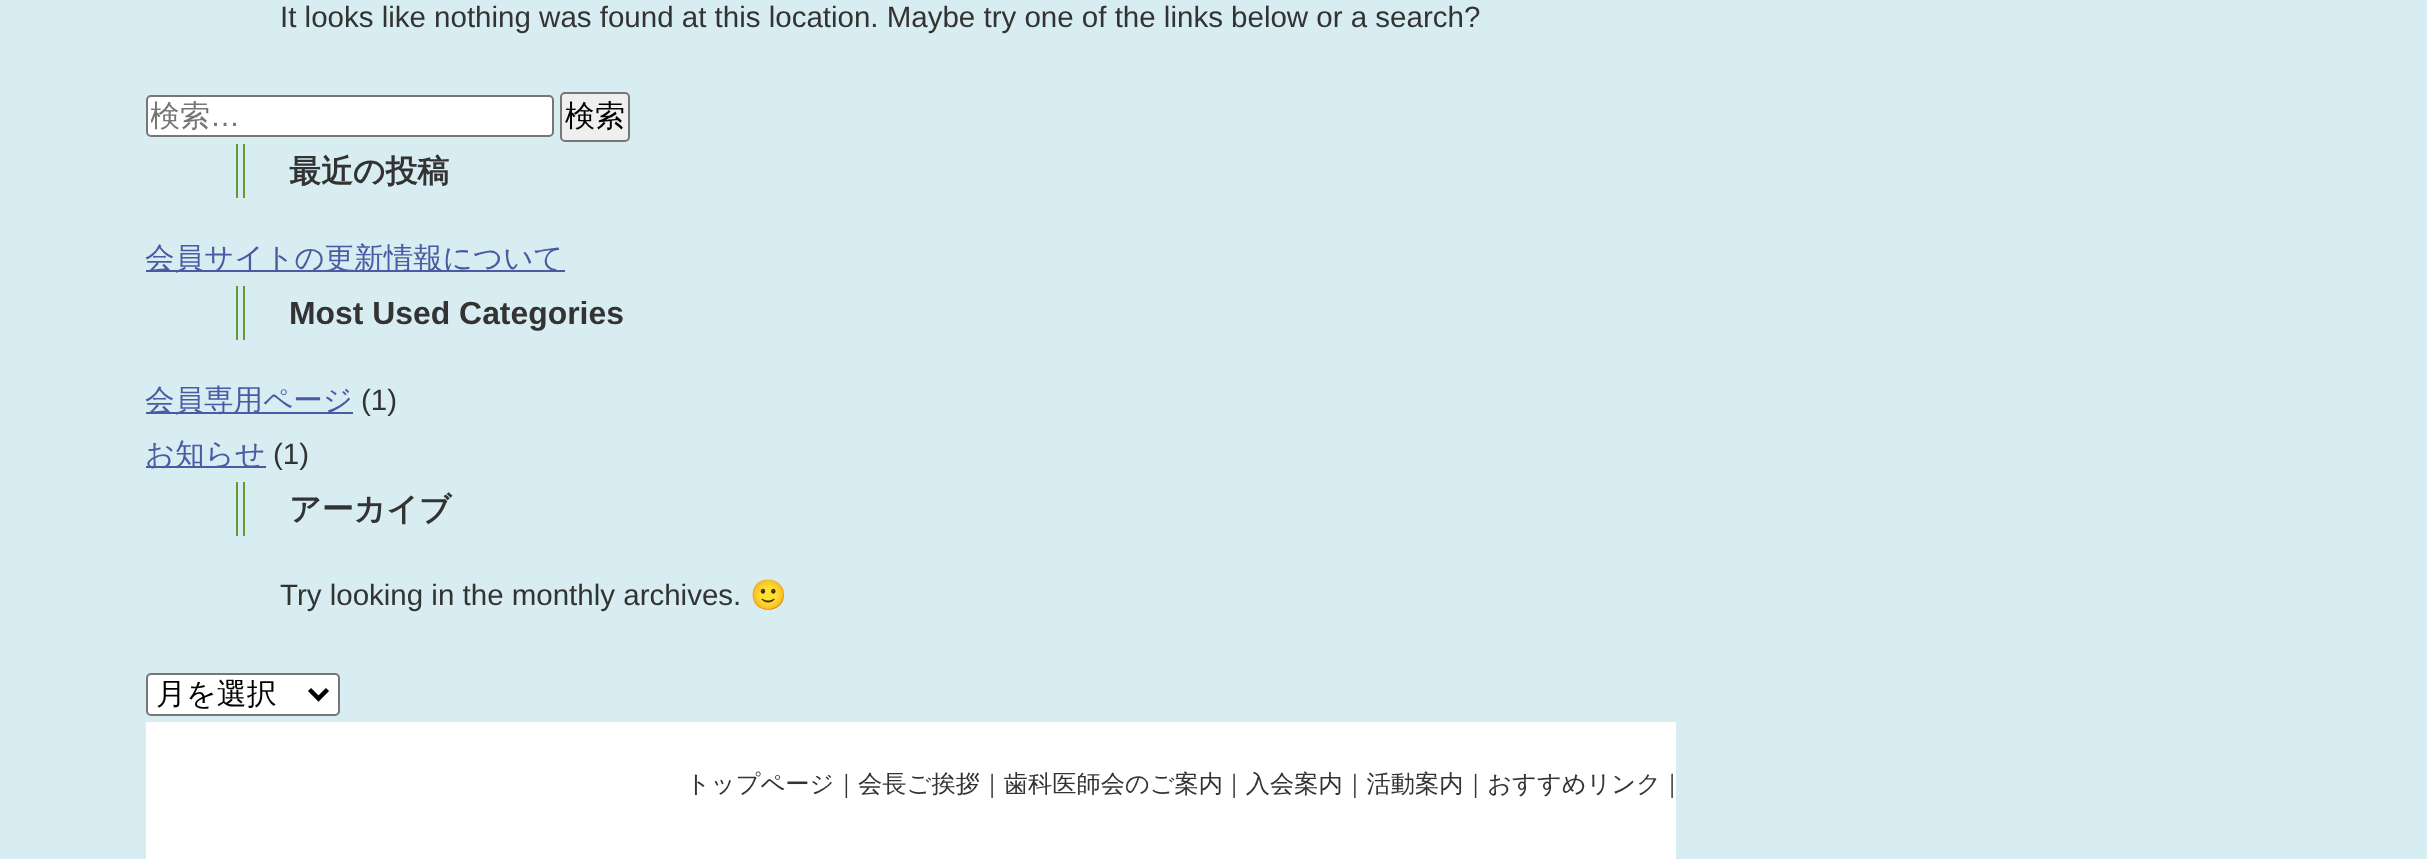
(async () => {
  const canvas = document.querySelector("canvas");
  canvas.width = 2427;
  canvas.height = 859;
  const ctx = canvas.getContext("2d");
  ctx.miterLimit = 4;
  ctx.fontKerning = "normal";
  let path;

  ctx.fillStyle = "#d7edf1";
  ctx.fillRect(0, 0, 2427, 859);
  ctx.fillStyle = "#ffffff";
  ctx.beginPath();
  ctx.roundRect(147, 96, 406, 40, 4);
  ctx.fill();
  ctx.strokeStyle = "#767676";
  ctx.lineWidth = 2;
  ctx.stroke();
  ctx.fillStyle = "#efefef";
  ctx.beginPath();
  ctx.roundRect(561, 93, 68, 48, 4);
  ctx.fill();
  ctx.stroke();
  for (const [x, y, w, h, color] of [
    [236, 144, 2, 54, "#669933"],
    [243, 144, 2, 54, "#669933"],
    [146, 270, 419, 2, "#4a5ba3"],
    [236, 286, 2, 54, "#669933"],
    [243, 286, 2, 54, "#669933"],
    [146, 412, 207, 2, "#4a5ba3"],
    [146, 466, 120, 2, "#4a5ba3"],
    [236, 482, 2, 54, "#669933"],
    [243, 482, 2, 54, "#669933"],
  ]) {
    ctx.fillStyle = color;
    ctx.fillRect(x, y, w, h);
  }
  ctx.fillStyle = "#ffffff";
  ctx.beginPath();
  ctx.roundRect(147, 674, 192, 41, 4);
  ctx.fill();
  ctx.stroke();
  path = new Path2D("M309.5 689.5L318.5 698.5L327.5 689.5");
  ctx.strokeStyle = "#000000";
  ctx.lineWidth = 4.5;
  ctx.stroke(path);
  ctx.fillRect(146, 722, 1530, 137);
  ctx.font = "29.5px Liberation Sans";
  ctx.fillStyle = "#333333";
  ctx.fillText("It looks like nothing was found at this location. Maybe try one of the links below or a search?", 280, 27);
  ctx.save();
  ctx.beginPath();
  ctx.rect(151, 99, 369, 34);
  ctx.clip();
  ctx.font = "500 30px WenQuanYi Zen Hei";
  ctx.fillStyle = "#757575";
  ctx.fillText("検索", 150, 126);
  ctx.restore();
  ctx.font = "30px Liberation Sans";
  ctx.fillStyle = "#757575";
  ctx.fillText("…", 210, 126);
  ctx.font = "500 30px WenQuanYi Zen Hei";
  ctx.fillStyle = "#000000";
  ctx.fillText("検索", 565, 126);
  ctx.font = "bold 31.9px WenQuanYi Zen Hei";
  ctx.fillStyle = "#333333";
  ctx.fillText("最近の投稿", 289, 182);
  ctx.font = "500 29.5px WenQuanYi Zen Hei";
  ctx.fillStyle = "#4a5ba3";
  ctx.fillText("会員サイトの更新情報について", 145, 268);
  ctx.font = "bold 31.9px Liberation Sans";
  ctx.fillStyle = "#333333";
  ctx.fillText("Most Used Categories", 289, 324);
  ctx.font = "500 29.5px WenQuanYi Zen Hei";
  ctx.fillStyle = "#4a5ba3";
  ctx.fillText("会員専用ページ", 145, 410);
  ctx.font = "29.5px Liberation Sans";
  ctx.fillStyle = "#333333";
  ctx.fillText("(1)", 361, 410);
  ctx.font = "500 29.5px WenQuanYi Zen Hei";
  ctx.fillStyle = "#4a5ba3";
  ctx.fillText("お知らせ", 145, 464);
  ctx.font = "29.5px Liberation Sans";
  ctx.fillStyle = "#333333";
  ctx.fillText("(1)", 273, 464);
  ctx.font = "bold 31.9px WenQuanYi Zen Hei";
  ctx.fillText("アーカイブ", 289, 520);
  ctx.font = "29.5px Liberation Sans";
  ctx.fillText("Try looking in the monthly archives.", 280, 605);
  ctx.font = "29.5px Noto Color Emoji";
  ctx.fillText("🙂", 750, 605);
  ctx.font = "500 30px WenQuanYi Zen Hei";
  ctx.fillStyle = "#000000";
  ctx.fillText("月を選択", 156, 704);
  ctx.font = "500 24.25px WenQuanYi Zen Hei";
  ctx.fillStyle = "#333333";
  for (const [text, x, y] of [
    ["トップページ｜会長ご挨拶｜歯科医師会のご案内", 686, 792],
    ["｜入会案内｜活動案内｜おすすめリンク", 1222, 792],
    ["｜", 1660, 792],
  ]) {
    ctx.fillText(text, x, y);
  }
})();
